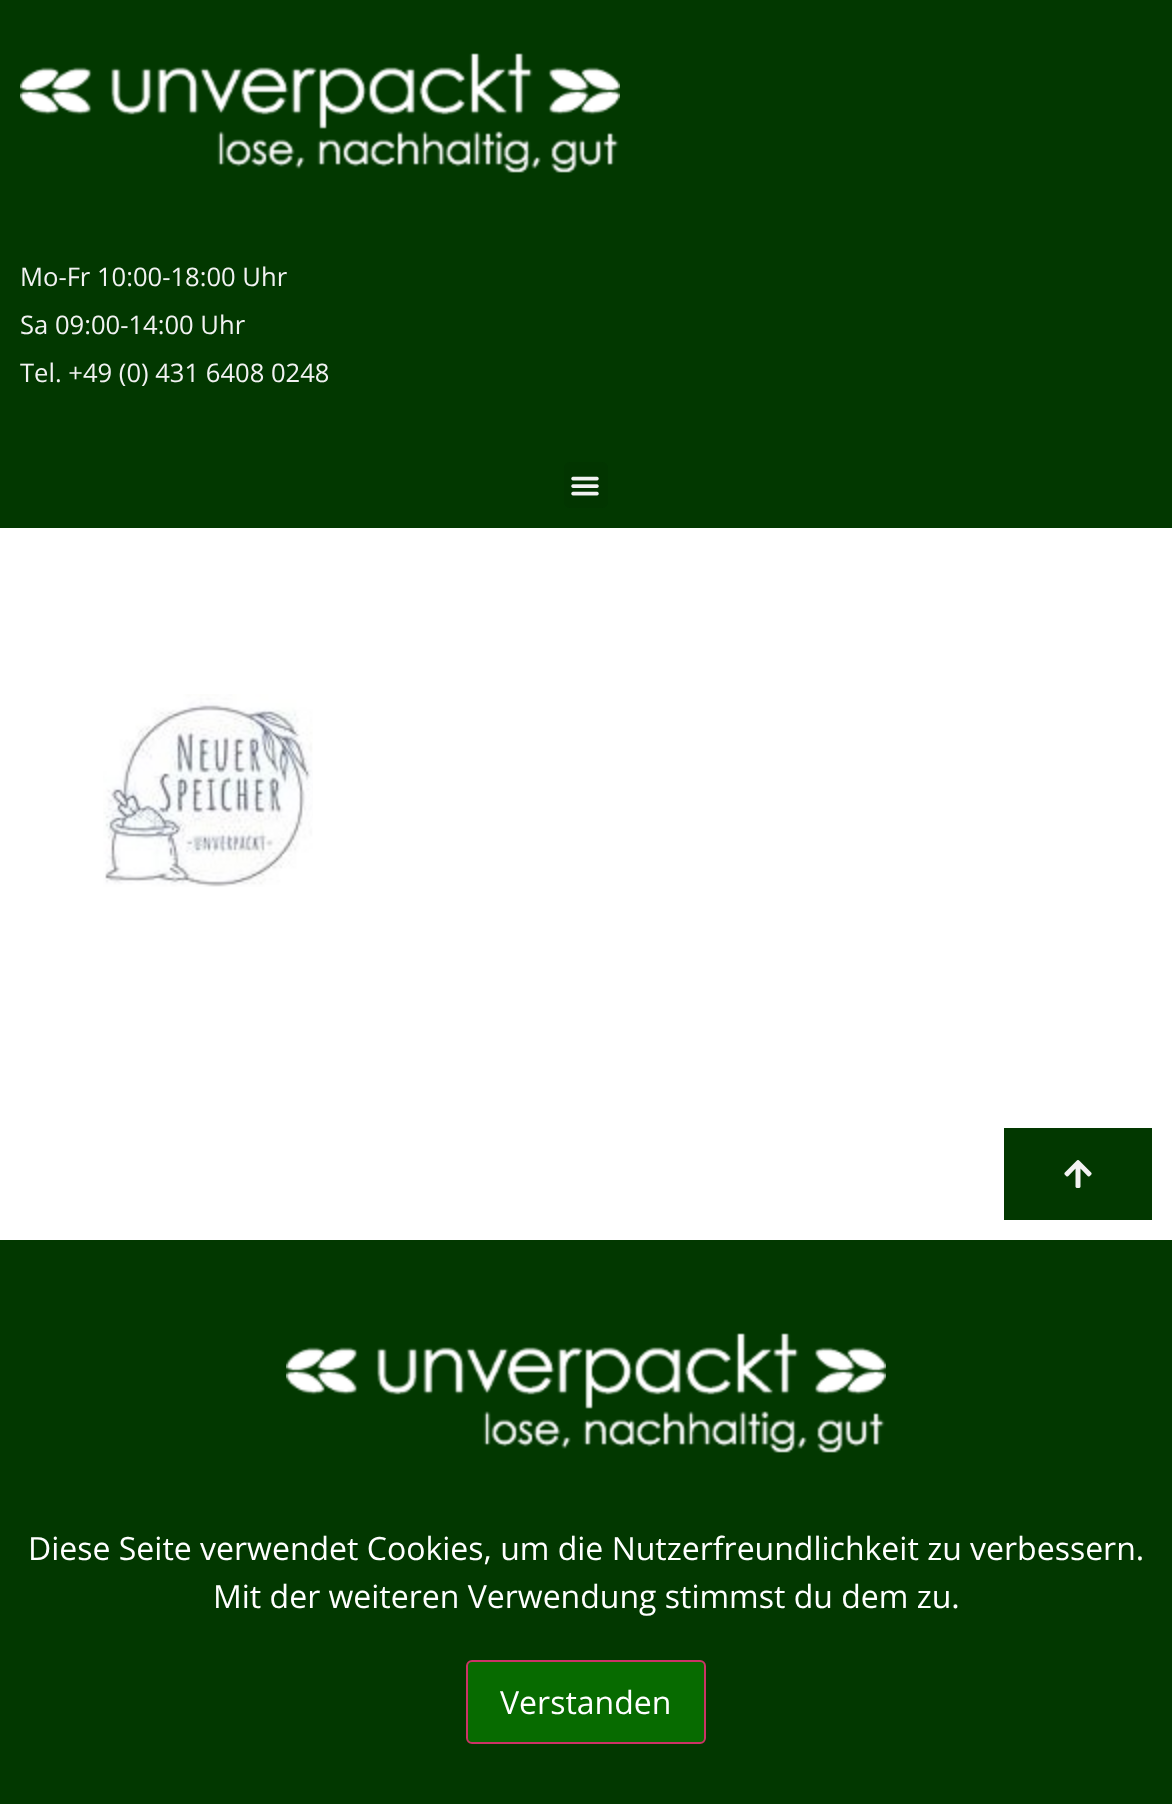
(async () => {
  const canvas = document.querySelector("canvas");
  canvas.width = 1172;
  canvas.height = 1804;
  const ctx = canvas.getContext("2d");
  ctx.miterLimit = 4;
  ctx.fontKerning = "normal";
  async function loadImage(src) {
    const img = new Image();
    img.src = src;
    await img.decode();
    return img;
  }

  ctx.fillStyle = "#ffffff";
  ctx.fillRect(0, 0, 1172, 1804);
  ctx.fillStyle = "#023800";
  ctx.fillRect(0, 0, 1172, 528);
  ctx.drawImage(await loadImage("img/1.png"), 20, 53, 600, 120);
  ctx.fillStyle = "#023500";
  ctx.beginPath();
  ctx.roundRect(564, 462, 44, 46, 6);
  ctx.fill();
  ctx.drawImage(await loadImage("img/2.png"), 571, 476, 28, 20);
  ctx.drawImage(await loadImage("img/3.png"), 103, 694, 210, 193);
  ctx.fillStyle = "#023800";
  ctx.fillRect(1004, 1128, 148, 92);
  ctx.drawImage(await loadImage("img/4.png"), 1064, 1160, 28, 28);
  ctx.fillRect(0, 1240, 1172, 564);
  ctx.drawImage(await loadImage("img/1.png"), 286, 1333, 600, 120);
  ctx.fillStyle = "#076b00";
  ctx.beginPath();
  ctx.roundRect(467, 1661, 238, 82, 5);
  ctx.fill();
  ctx.strokeStyle = "#cc3366";
  ctx.lineWidth = 2;
  ctx.stroke();
  ctx.font = "25.6px Open Sans";
  ctx.fillStyle = "#f2f2f2";
  for (const [text, x, y] of [
    ["Mo-Fr 10:00-18:00 Uhr", 20, 286],
    ["Sa 09:00-14:00 Uhr", 20, 334],
    ["Tel. +49 (0) 431 6408 0248", 20, 382],
  ]) {
    ctx.fillText(text, x, y);
  }
  ctx.font = "32px Open Sans";
  ctx.fillStyle = "#ffffff";
  for (const [text, x, y] of [
    ["Diese Seite verwendet Cookies, um die Nutzerfreundlichkeit zu verbessern.", 28, 1560],
    ["Mit der weiteren Verwendung stimmst du dem zu.", 213, 1608],
    ["Verstanden", 500, 1714],
  ]) {
    ctx.fillText(text, x, y);
  }
})();
